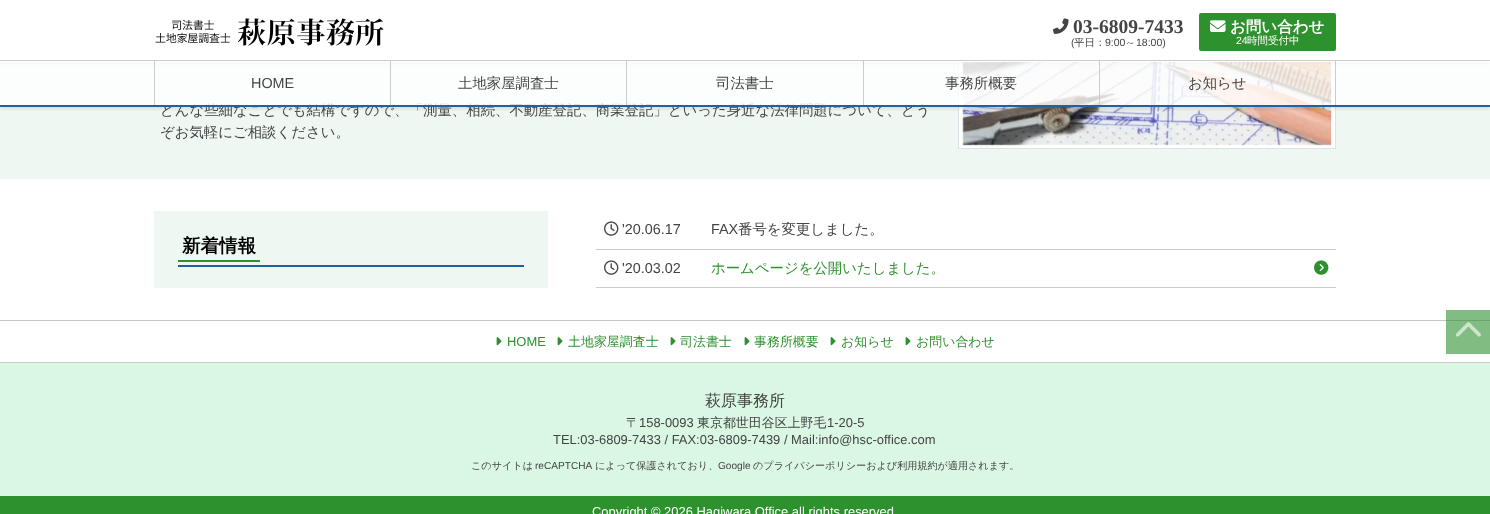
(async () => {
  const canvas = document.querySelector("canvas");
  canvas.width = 1490;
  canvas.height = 514;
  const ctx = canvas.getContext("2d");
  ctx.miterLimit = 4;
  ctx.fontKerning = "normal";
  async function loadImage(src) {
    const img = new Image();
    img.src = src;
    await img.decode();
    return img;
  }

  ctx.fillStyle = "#ffffff";
  ctx.fillRect(0, 0, 1490, 514);
  for (const [x, y, w, h, color] of [
    [1446, 310, 44, 44, "#81bd82"],
    [0, 62, 1490, 117, "#eff7f2"],
    [959, 62, 376, 86, "#ffffff"],
  ]) {
    ctx.fillStyle = color;
    ctx.fillRect(x, y, w, h);
  }
  ctx.strokeStyle = "#dee2e6";
  ctx.strokeRect(958.5, -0.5, 377, 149);
  ctx.drawImage(await loadImage("img/4.png"), 962, 62, 370, 84);
  ctx.fillStyle = "rgba(0, 0, 0, 0.1)";
  ctx.filter = "blur(2px)";
  ctx.beginPath();
  ctx.rect(0, 2, 1490, 62);
  ctx.fill();
  ctx.filter = "none";
  ctx.fillStyle = "#ffffff";
  ctx.fillRect(0, 0, 1490, 62);
  ctx.drawImage(await loadImage("img/1.png"), 155, 18, 229, 28);
  ctx.drawImage(await loadImage("img/2.png"), 1053, 18, 16, 16);
  ctx.fillStyle = "#2d912e";
  ctx.beginPath();
  ctx.roundRect(1199, 13, 137, 38, 2);
  ctx.fill();
  ctx.drawImage(await loadImage("img/3.png"), 1210, 20, 16, 12);
  ctx.save();
  ctx.beginPath();
  ctx.rect(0, 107, 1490, 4);
  ctx.clip();
  ctx.fillStyle = "rgba(0, 0, 0, 0.1)";
  ctx.filter = "blur(2px)";
  ctx.beginPath();
  ctx.rect(0, 62, 1490, 47);
  ctx.fill();
  ctx.filter = "none";
  ctx.restore();
  for (const [x, y, w, h, color] of [
    [0, 60, 1490, 1, "#cccccc"],
    [154, 211, 394, 77, "#eff7f2"],
    [178, 265, 346, 2, "#1a64a5"],
    [178, 260, 82, 2, "#2d912e"],
    [596, 249, 740, 1, "#cccccc"],
  ]) {
    ctx.fillStyle = color;
    ctx.fillRect(x, y, w, h);
  }
  ctx.drawImage(await loadImage("img/5.png"), 604, 221, 15, 15);
  ctx.fillRect(596, 287, 740, 1);
  ctx.drawImage(await loadImage("img/5.png"), 604, 260, 15, 15);
  ctx.drawImage(await loadImage("img/6.png"), 1314, 260, 15, 15);
  ctx.drawImage(await loadImage("img/7.png"), 1455, 322, 26, 15);
  for (const [x, y, w, h, color] of [
    [0, 320, 1446, 1, "#c6c6c6"],
    [1446, 320, 44, 1, "#6aa66b"],
    [0, 362, 1490, 1, "#cccccc"],
  ]) {
    ctx.fillStyle = color;
    ctx.fillRect(x, y, w, h);
  }
  ctx.drawImage(await loadImage("img/8.png"), 496, 337, 6, 9);
  ctx.drawImage(await loadImage("img/8.png"), 557, 337, 6, 9);
  ctx.drawImage(await loadImage("img/8.png"), 670, 337, 6, 9);
  ctx.drawImage(await loadImage("img/8.png"), 744, 337, 6, 9);
  ctx.drawImage(await loadImage("img/8.png"), 830, 337, 6, 9);
  ctx.drawImage(await loadImage("img/8.png"), 905, 337, 6, 9);
  ctx.fillStyle = "#d9f7e3";
  ctx.fillRect(0, 363, 1490, 133);
  ctx.fillStyle = "#2d912e";
  ctx.fillRect(0, 496, 1490, 18);
  ctx.font = "bold 19.5px Liberation Serif";
  ctx.fillStyle = "#444444";
  ctx.fillText("03-6809-7433", 1073, 33);
  ctx.font = "10.5px Liberation Sans";
  ctx.fillText("(", 1071, 46);
  ctx.font = "500 10.5px WenQuanYi Zen Hei";
  ctx.fillText("平日：", 1074, 46);
  ctx.font = "10.5px Liberation Sans";
  ctx.fillText("9:00", 1105, 46);
  ctx.font = "500 10.5px WenQuanYi Zen Hei";
  ctx.fillText("～", 1125, 46);
  ctx.font = "10.5px Liberation Sans";
  ctx.fillText("18:00)", 1136, 46);
  ctx.font = "bold 15.5px WenQuanYi Zen Hei";
  ctx.fillStyle = "#ffffff";
  ctx.fillText("お問い合わせ", 1230, 32);
  ctx.font = "10.5px Liberation Sans";
  ctx.fillText("24", 1236, 44);
  ctx.font = "500 10.5px WenQuanYi Zen Hei";
  ctx.fillText("時間受付中", 1247, 44);
  ctx.font = "500 14.4px WenQuanYi Zen Hei";
  ctx.fillStyle = "#444444";
  ctx.fillText("どんな些細なことでも結構ですので、「測量、相続、不動産登記、商業登記」といった身近な法律問題について、どう", 160, 115);
  ctx.fillStyle = "rgba(255, 255, 255, 0.8)";
  ctx.fillRect(0, 62, 1490, 43);
  ctx.fillStyle = "#444444";
  ctx.fillText("お知らせ", 1188, 88);
  ctx.fillStyle = "#cccccc";
  ctx.fillRect(1099, 61, 1, 44);
  ctx.fillStyle = "#444444";
  ctx.fillText("事務所概要", 945, 88);
  ctx.fillStyle = "#cccccc";
  ctx.fillRect(863, 61, 1, 44);
  ctx.fillStyle = "#444444";
  ctx.fillText("司法書士", 716, 88);
  ctx.fillStyle = "#cccccc";
  ctx.fillRect(626, 61, 1, 44);
  ctx.fillStyle = "#444444";
  ctx.fillText("土地家屋調査士", 458, 88);
  ctx.fillStyle = "#cccccc";
  ctx.fillRect(390, 61, 1, 44);
  ctx.font = "14.4px Liberation Sans";
  ctx.fillStyle = "#444444";
  ctx.fillText("HOME", 251, 88);
  for (const [x, y, w, h, color] of [
    [154, 61, 1, 44, "#cccccc"],
    [1335, 61, 1, 44, "#cccccc"],
    [0, 105, 1490, 2, "#1a64a5"],
  ]) {
    ctx.fillStyle = color;
    ctx.fillRect(x, y, w, h);
  }
  ctx.font = "500 14.4px WenQuanYi Zen Hei";
  ctx.fillStyle = "#444444";
  ctx.fillText("ぞお気軽にご相談ください。", 160, 137);
  ctx.font = "bold 18.5px WenQuanYi Zen Hei";
  ctx.fillStyle = "#000000";
  ctx.fillText("新着情報", 182, 252);
  ctx.font = "14.4px Liberation Sans";
  ctx.fillStyle = "#444444";
  ctx.fillText("'20.06.17", 622, 234);
  ctx.fillText("FAX", 711, 234);
  ctx.font = "500 14.4px WenQuanYi Zen Hei";
  ctx.fillText("番号を変更しました。", 738, 234);
  ctx.font = "14.4px Liberation Sans";
  ctx.fillText("'20.03.02", 622, 273);
  ctx.font = "500 14.4px WenQuanYi Zen Hei";
  ctx.fillStyle = "#2d912e";
  ctx.fillText("ホームページを公開いたしました。", 711, 273);
  ctx.font = "12.95px Liberation Sans";
  ctx.fillText("HOME", 507, 346);
  ctx.font = "500 12.95px WenQuanYi Zen Hei";
  for (const [text, x, y] of [
    ["土地家屋調査士", 568, 346],
    ["司法書士", 680, 346],
    ["事務所概要", 754, 346],
    ["お知らせ", 841, 346],
    ["お問い合わせ", 916, 346],
  ]) {
    ctx.fillText(text, x, y);
  }
  ctx.font = "500 16px WenQuanYi Zen Hei";
  ctx.fillStyle = "#444444";
  ctx.fillText("萩原事務所", 705, 406);
  ctx.font = "500 12.95px WenQuanYi Zen Hei";
  ctx.fillText("〒", 626, 427);
  ctx.font = "12.95px Liberation Sans";
  ctx.fillText("158-0093", 639, 427);
  ctx.font = "500 12.95px WenQuanYi Zen Hei";
  ctx.fillText("東京都世田谷区上野毛", 697, 427);
  ctx.font = "12.95px Liberation Sans";
  ctx.fillText("1-20-5", 827, 427);
  ctx.fillText("TEL:03-6809-7433 / FAX:03-6809-7439 / Mail:info@hsc-office.com", 553, 444);
  ctx.font = "500 10.1px WenQuanYi Zen Hei";
  ctx.fillText("このサイトは", 471, 469);
  ctx.font = "10.1px Liberation Sans";
  ctx.fillText("reCAPTCHA", 535, 469);
  ctx.font = "500 10.1px WenQuanYi Zen Hei";
  ctx.fillText("によって保護されており、", 595, 469);
  ctx.font = "10.1px Liberation Sans";
  ctx.fillText("Google", 718, 469);
  ctx.font = "500 10.1px WenQuanYi Zen Hei";
  ctx.fillText("のプライバシーポリシーおよび利用規約が適用されます。", 753, 469);
  ctx.font = "12.95px Liberation Sans";
  ctx.fillStyle = "#ffffff";
  ctx.fillText("Copyright © 2026 Hagiwara Office all rights reserved", 592, 516);
})();
